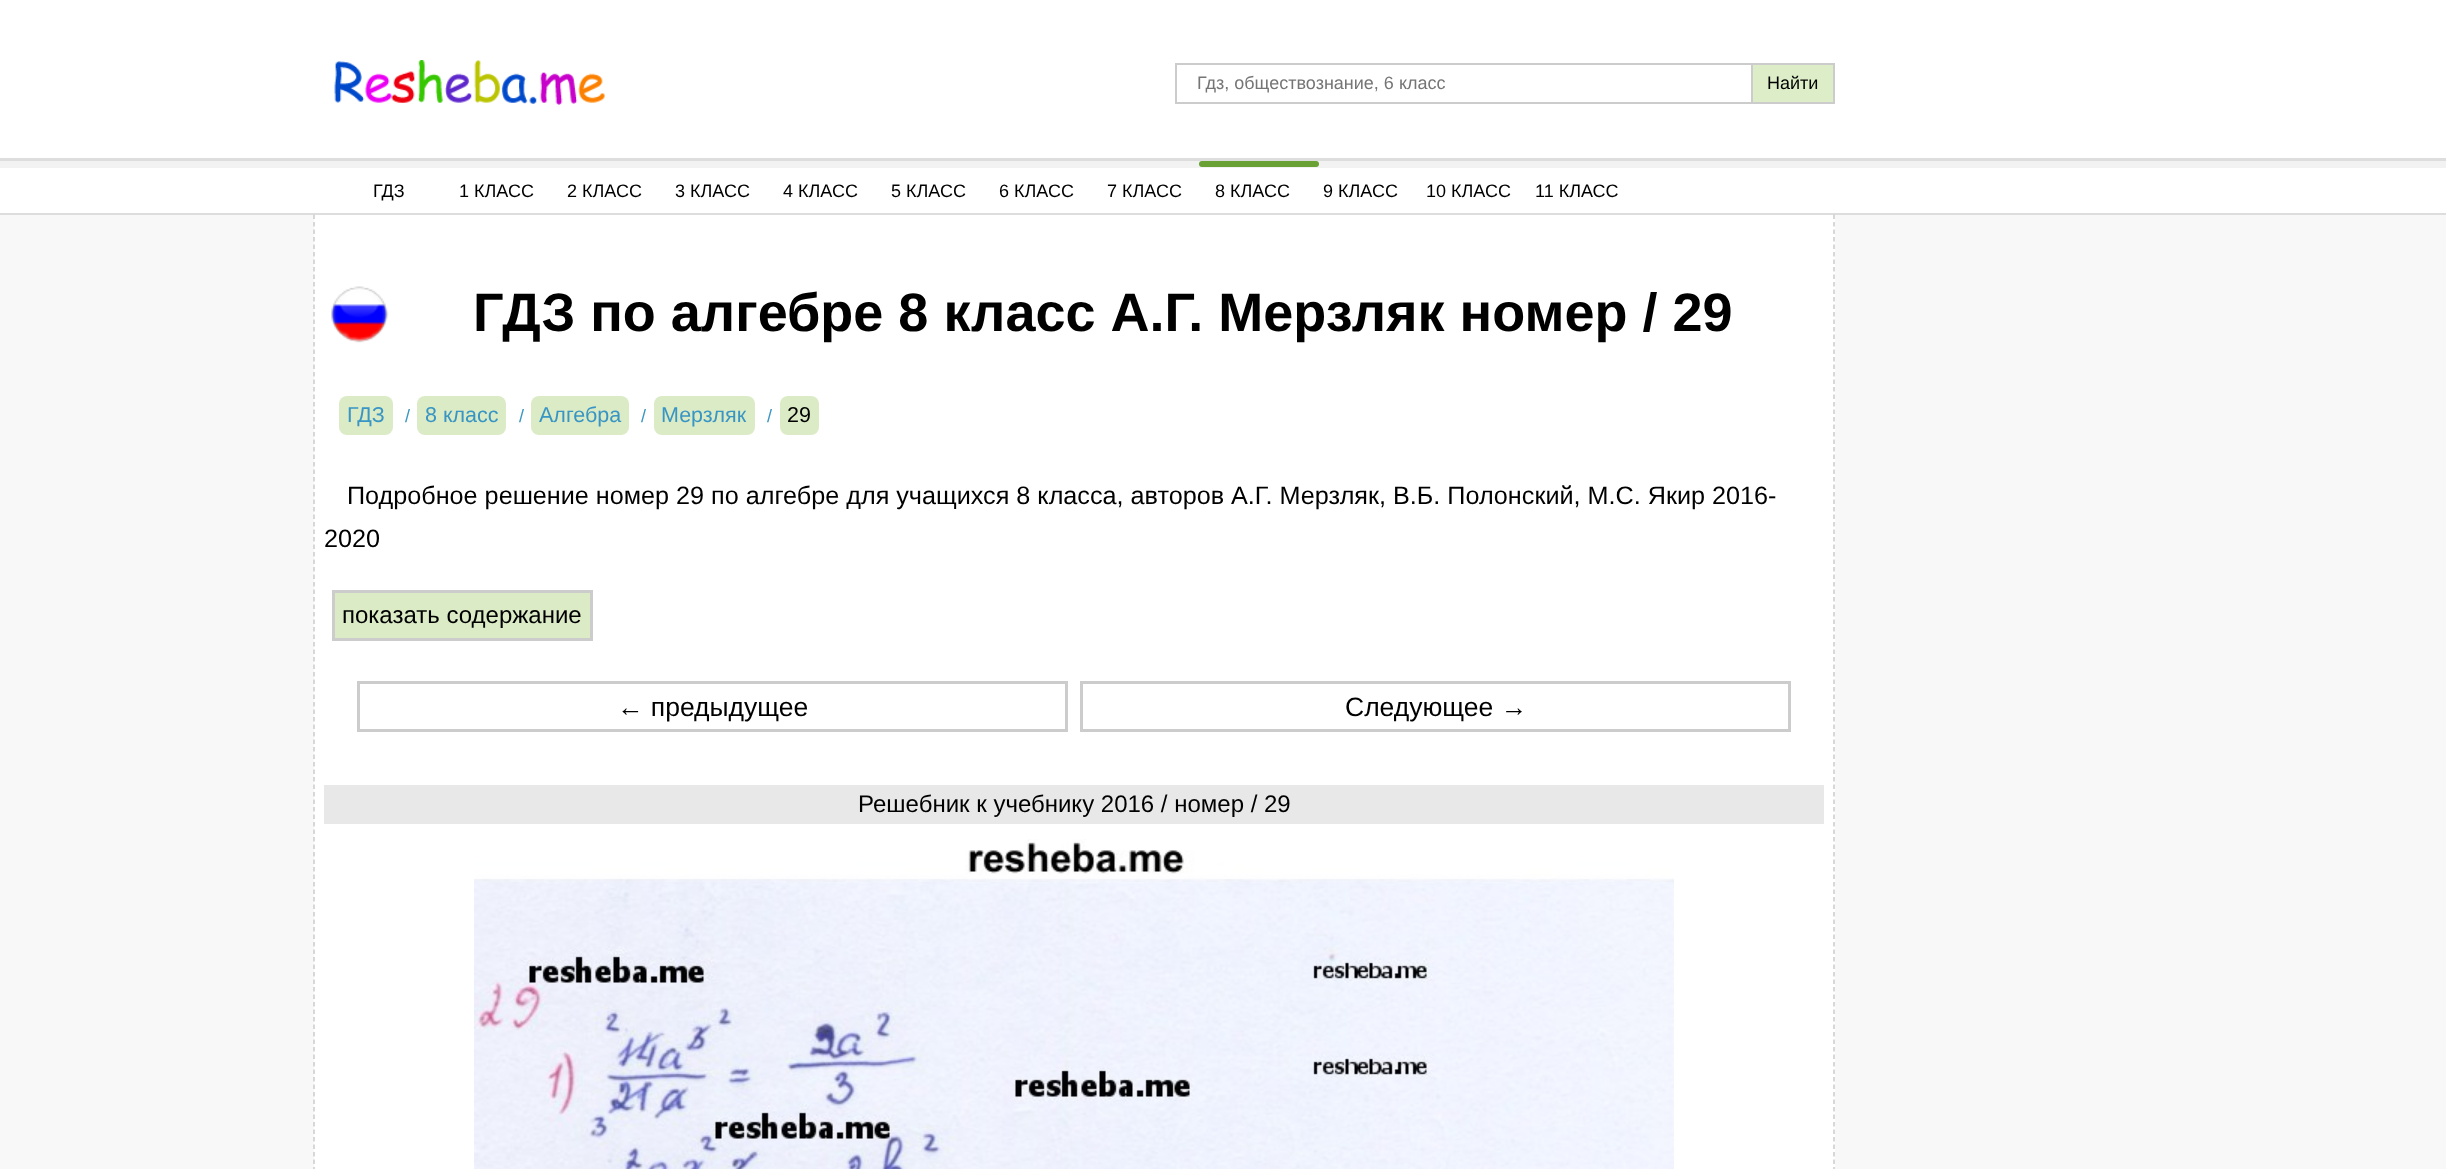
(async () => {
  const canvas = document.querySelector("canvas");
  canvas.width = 2446;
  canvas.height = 1169;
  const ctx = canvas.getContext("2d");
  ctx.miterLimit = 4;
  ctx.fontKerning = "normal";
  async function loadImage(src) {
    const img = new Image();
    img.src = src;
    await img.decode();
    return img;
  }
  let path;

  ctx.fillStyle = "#f8f8f9";
  ctx.fillRect(0, 0, 2446, 1169);
  ctx.fillStyle = "#ffffff";
  ctx.fillRect(0, 0, 2446, 158);
  ctx.fillStyle = "#dddddd";
  ctx.fillRect(0, 158, 2446, 3);
  ctx.drawImage(await loadImage("img/1.png"), 334, 60, 271, 45);
  ctx.strokeStyle = "#cccccc";
  ctx.lineWidth = 2;
  ctx.strokeRect(1176, 64, 658, 39);
  for (const [x, y, w, h, color] of [
    [1753, 65, 80, 37, "#dcedc7"],
    [1751, 65, 2, 37, "#cccccc"],
    [0, 168, 2446, 45, "#ffffff"],
    [0, 213, 2446, 2, "#dddddd"],
    [0, 161, 2446, 7, "#f2f2f2"],
  ]) {
    ctx.fillStyle = color;
    ctx.fillRect(x, y, w, h);
  }
  ctx.fillStyle = "#69a134";
  ctx.beginPath();
  ctx.roundRect(1199, 161, 120, 6, 3);
  ctx.fill();
  ctx.fillStyle = "#ffffff";
  ctx.fillRect(314, 215, 1521, 954);
  path = new Path2D("M1834 214.5V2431.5");
  ctx.lineWidth = 1.5;
  ctx.setLineDash([4.5, 3]);
  ctx.stroke(path);
  path = new Path2D("M314 214.5V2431.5");
  ctx.stroke(path);
  ctx.drawImage(await loadImage("img/2.png"), 331, 286, 58, 57);
  ctx.fillStyle = "#daebc6";
  ctx.beginPath();
  ctx.roundRect(339, 396, 54, 39, 8);
  ctx.fill();
  ctx.beginPath();
  ctx.roundRect(417, 396, 89, 39, 8);
  ctx.fill();
  ctx.beginPath();
  ctx.roundRect(531, 396, 98, 39, 8);
  ctx.fill();
  ctx.beginPath();
  ctx.roundRect(654, 396, 101, 39, 8);
  ctx.fill();
  ctx.beginPath();
  ctx.roundRect(780, 396, 39, 39, 8);
  ctx.fill();
  ctx.beginPath();
  ctx.rect(333.5, 591.5, 258, 48);
  ctx.fill();
  ctx.lineWidth = 3;
  ctx.setLineDash([]);
  ctx.stroke();
  ctx.strokeRect(358.5, 682.5, 708, 48);
  ctx.strokeRect(1081.5, 682.5, 708, 48);
  ctx.fillStyle = "#e8e8e8";
  ctx.fillRect(324, 785, 1500, 39);
  ctx.drawImage(await loadImage("img/3.png"), 474, 839, 1200, 330);
  ctx.font = "18px Liberation Sans";
  ctx.fillStyle = "#757575";
  ctx.fillText("Гдз, обществознание, 6 класс", 1197, 89);
  ctx.fillStyle = "#000000";
  for (const [text, x, y] of [
    ["Найти", 1767, 89],
    ["ГДЗ", 373, 197],
    ["1 КЛАСС", 459, 197],
    ["2 КЛАСС", 567, 197],
    ["3 КЛАСС", 675, 197],
    ["4 КЛАСС", 783, 197],
    ["5 КЛАСС", 891, 197],
    ["6 КЛАСС", 999, 197],
    ["7 КЛАСС", 1107, 197],
    ["8 КЛАСС", 1215, 197],
    ["9 КЛАСС", 1323, 197],
    ["10 КЛАСС", 1426, 197],
    ["11 КЛАСС", 1535, 197],
  ]) {
    ctx.fillText(text, x, y);
  }
  ctx.font = "bold 54px Liberation Sans";
  ctx.fillText("ГДЗ по алгебре 8 класс А.Г. Мерзляк номер / 29", 473, 331);
  ctx.font = "21.5px Liberation Sans";
  ctx.fillStyle = "#3995c3";
  ctx.fillText("ГДЗ", 347, 422);
  ctx.font = "18px Liberation Sans";
  ctx.fillText("/", 405, 422);
  ctx.font = "21.5px Liberation Sans";
  ctx.fillText("8 класс", 425, 422);
  ctx.font = "18px Liberation Sans";
  ctx.fillText("/", 519, 422);
  ctx.font = "21.5px Liberation Sans";
  ctx.fillText("Алгебра", 539, 422);
  ctx.font = "18px Liberation Sans";
  ctx.fillText("/", 641, 422);
  ctx.font = "21.5px Liberation Sans";
  ctx.fillText("Мерзляк", 661, 422);
  ctx.font = "18px Liberation Sans";
  ctx.fillText("/", 767, 422);
  ctx.font = "21.5px Liberation Sans";
  ctx.fillStyle = "#000000";
  ctx.fillText("29", 787, 422);
  ctx.font = "25.2px Liberation Sans";
  ctx.fillText("Подробное решение номер 29 по алгебре для учащихся 8 класса, авторов А.Г. Мерзляк, В.Б. Полонский, М.С. Якир 2016-", 347, 504);
  ctx.fillText("2020", 324, 547);
  ctx.font = "24px Liberation Sans";
  ctx.fillText("показать содержание", 342, 623);
  ctx.font = "26.5px Liberation Sans";
  ctx.fillText("← предыдущее", 617, 716);
  ctx.fillText("Следующее →", 1345, 716);
  ctx.font = "24px Liberation Sans";
  ctx.fillText("Решебник к учебнику 2016 / номер / 29", 858, 812);
})();
